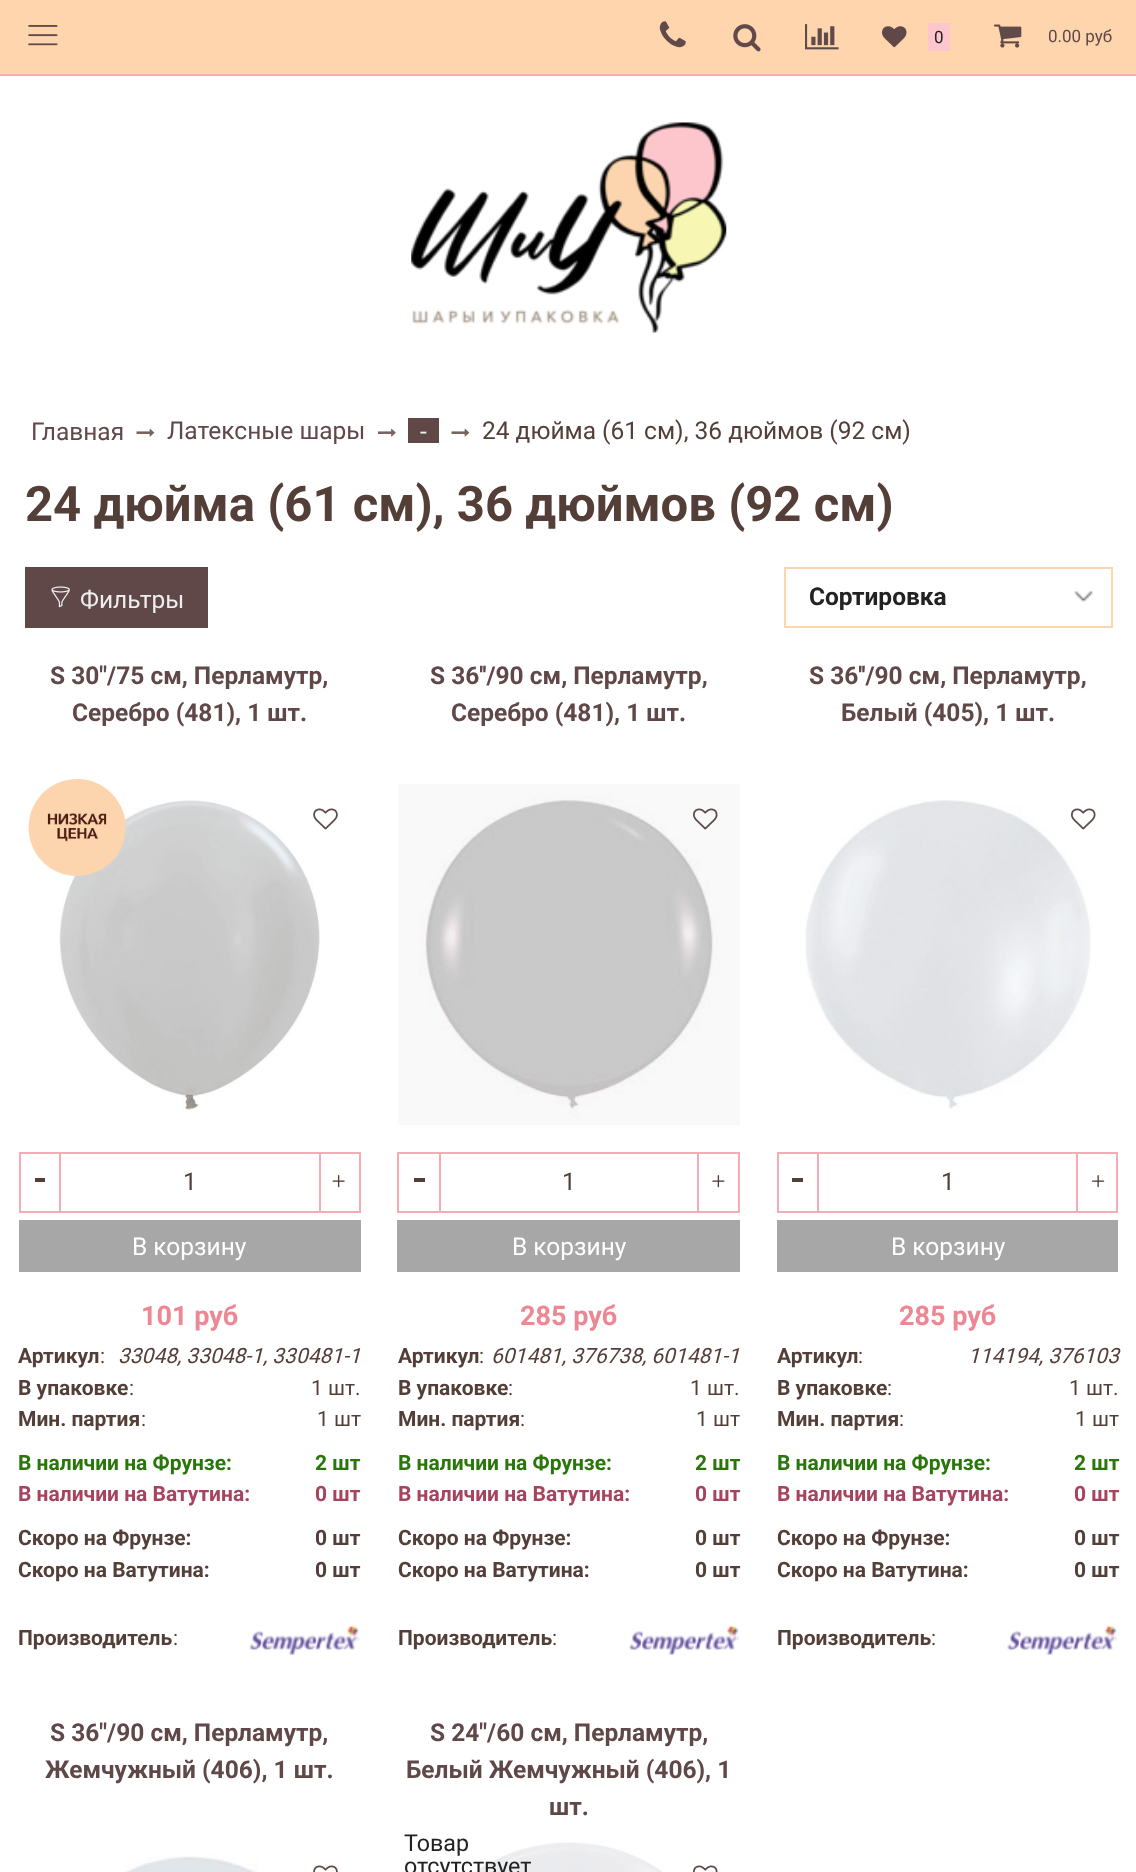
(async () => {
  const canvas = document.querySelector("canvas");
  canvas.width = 1136;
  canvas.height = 1872;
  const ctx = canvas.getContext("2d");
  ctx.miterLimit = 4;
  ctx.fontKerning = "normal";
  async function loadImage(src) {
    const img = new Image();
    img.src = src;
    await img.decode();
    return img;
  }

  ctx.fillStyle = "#ffffff";
  ctx.fillRect(0, 0, 1136, 1872);
  ctx.fillStyle = "#f6acb4";
  ctx.fillRect(0, 74, 1136, 2);
  ctx.fillStyle = "#ffd5ad";
  ctx.fillRect(0, 0, 1136, 74);
  ctx.drawImage(await loadImage("img/1.png"), 28, 25, 30, 21);
  ctx.drawImage(await loadImage("img/2.png"), 659, 21, 27, 27);
  ctx.drawImage(await loadImage("img/3.png"), 733, 24, 28, 28);
  ctx.drawImage(await loadImage("img/4.png"), 805, 24, 34, 26);
  ctx.drawImage(await loadImage("img/5.png"), 882, 26, 25, 22);
  ctx.fillStyle = "#fdc6cc";
  ctx.fillRect(928, 23, 22, 28);
  ctx.drawImage(await loadImage("img/6.png"), 994, 24, 28, 24);
  ctx.drawImage(await loadImage("img/7.png"), 411, 122, 316, 211);
  ctx.drawImage(await loadImage("img/8.png"), 136, 428, 19, 9);
  ctx.drawImage(await loadImage("img/9.png"), 378, 428, 18, 9);
  ctx.fillStyle = "#604848";
  ctx.fillRect(408, 418, 31, 25);
  ctx.drawImage(await loadImage("img/8.png"), 451, 428, 19, 9);
  ctx.fillRect(25, 567, 183, 61);
  ctx.drawImage(await loadImage("img/10.png"), 51, 586, 19, 22);
  ctx.drawImage(await loadImage("img/11.png"), 1074, 591, 19, 12);
  ctx.strokeStyle = "#ffd5ad";
  ctx.lineWidth = 2;
  ctx.strokeRect(785, 568, 327, 59);
  ctx.drawImage(await loadImage("img/13.png"), 59, 800, 261, 310);
  ctx.drawImage(await loadImage("img/12.png"), 28, 779, 98, 97);
  ctx.drawImage(await loadImage("img/14.png"), 313, 808, 25, 22);
  ctx.strokeStyle = "#f6acb4";
  ctx.strokeRect(20, 1153, 40, 59);
  for (const [x, y, w, h, color] of [
    [35, 1178, 10, 4, "#543e38"],
    [61, 1152, 258, 2, "#f6acb4"],
    [61, 1211, 258, 2, "#f6acb4"],
  ]) {
    ctx.fillStyle = color;
    ctx.fillRect(x, y, w, h);
  }
  ctx.strokeRect(320, 1153, 40, 59);
  ctx.drawImage(await loadImage("img/15.png"), 332, 1175, 13, 13);
  ctx.fillStyle = "#a7a7a7";
  ctx.fillRect(19, 1220, 342, 52);
  ctx.drawImage(await loadImage("img/16.png"), 249, 1625, 111, 30);
  ctx.drawImage(await loadImage("img/17.png"), 398, 784, 342, 341);
  ctx.drawImage(await loadImage("img/18.png"), 693, 808, 25, 22);
  ctx.strokeRect(398, 1153, 42, 59);
  for (const [x, y, w, h, color] of [
    [414, 1178, 11, 4, "#543e38"],
    [441, 1152, 256, 2, "#f6acb4"],
    [441, 1211, 256, 2, "#f6acb4"],
  ]) {
    ctx.fillStyle = color;
    ctx.fillRect(x, y, w, h);
  }
  ctx.strokeRect(698, 1153, 41, 59);
  ctx.drawImage(await loadImage("img/19.png"), 712, 1175, 13, 13);
  ctx.fillStyle = "#a7a7a7";
  ctx.fillRect(397, 1220, 343, 52);
  ctx.drawImage(await loadImage("img/20.png"), 629, 1625, 110, 30);
  ctx.drawImage(await loadImage("img/21.png"), 805, 800, 286, 309);
  ctx.drawImage(await loadImage("img/22.png"), 1071, 808, 25, 22);
  ctx.strokeRect(778, 1153, 40, 59);
  for (const [x, y, w, h, color] of [
    [792, 1178, 11, 4, "#543e38"],
    [819, 1152, 257, 2, "#f6acb4"],
    [819, 1211, 257, 2, "#f6acb4"],
  ]) {
    ctx.fillStyle = color;
    ctx.fillRect(x, y, w, h);
  }
  ctx.strokeRect(1077, 1153, 40, 59);
  ctx.drawImage(await loadImage("img/23.png"), 1092, 1175, 13, 13);
  ctx.fillStyle = "#a7a7a7";
  ctx.fillRect(777, 1220, 341, 52);
  ctx.drawImage(await loadImage("img/24.png"), 1007, 1625, 110, 30);
  ctx.drawImage(await loadImage("img/25.png"), 124, 1855, 135, 17);
  ctx.drawImage(await loadImage("img/26.png"), 313, 1865, 25, 7);
  ctx.drawImage(await loadImage("img/27.png"), 475, 1842, 188, 30);
  ctx.drawImage(await loadImage("img/28.png"), 693, 1865, 25, 7);
  ctx.font = "17px Roboto";
  ctx.fillStyle = "#222222";
  ctx.fillText("0", 934, 43);
  ctx.fillStyle = "#604848";
  ctx.fillText("0.00 руб", 1048, 42);
  ctx.font = "24.5px Roboto";
  ctx.fillText("Главная", 31, 440);
  ctx.fillText("Латексные шары", 167, 439);
  ctx.fillStyle = "#eeeeee";
  ctx.fillText("-", 420, 440);
  ctx.fillStyle = "#543e38";
  ctx.fillText("24 дюйма (61 см), 36 дюймов (92 см)", 482, 439);
  ctx.font = "bold 49px Roboto";
  ctx.fillText("24 дюйма (61 см), 36 дюймов (92 см)", 25, 521);
  ctx.font = "24.5px Roboto";
  ctx.fillStyle = "#eeeeee";
  ctx.fillText("Фильтры", 80, 608);
  ctx.font = "bold 24.5px Roboto";
  ctx.fillStyle = "#222222";
  ctx.fillText("Сортировка", 809, 605);
  ctx.fillStyle = "#604848";
  ctx.fillText("S 30\"/75 см, Перламутр,", 50, 684);
  ctx.fillText("Серебро (481), 1 шт.", 72, 721);
  ctx.font = "24.5px Roboto";
  ctx.fillStyle = "#543e38";
  ctx.fillText("1", 183, 1190);
  ctx.fillStyle = "#ffffff";
  ctx.fillText("В корзину", 132, 1255);
  ctx.font = "bold 27px Roboto";
  ctx.fillStyle = "#ed8793";
  ctx.fillText("101 руб", 141, 1325);
  ctx.font = "bold 21px Roboto";
  ctx.fillStyle = "#543e38";
  ctx.fillText("Артикул", 18, 1363);
  ctx.font = "21px Roboto";
  ctx.fillText(":", 100, 1363);
  ctx.font = "italic 21px Roboto";
  ctx.fillText("33048, 33048-1, 330481-1", 118, 1363);
  ctx.font = "bold 21px Roboto";
  ctx.fillText("В упаковке", 18, 1395);
  ctx.font = "21px Roboto";
  ctx.fillText(":", 129, 1395);
  ctx.fillText("1 шт.", 311, 1395);
  ctx.font = "bold 21px Roboto";
  ctx.fillText("Мин. партия", 18, 1426);
  ctx.font = "21px Roboto";
  ctx.fillText(":", 141, 1426);
  ctx.fillText("1 шт", 317, 1426);
  ctx.font = "bold 21px Roboto";
  ctx.fillStyle = "#29760b";
  ctx.fillText("В наличии на Фрунзе:", 18, 1470);
  ctx.fillText("2 шт", 315, 1470);
  ctx.fillStyle = "#a6435f";
  ctx.fillText("В наличии на Ватутина:", 18, 1501);
  ctx.fillText("0 шт", 315, 1501);
  ctx.fillStyle = "#543e38";
  for (const [text, x, y] of [
    ["Скоро на Фрунзе:", 18, 1545],
    ["0 шт", 315, 1545],
    ["Скоро на Ватутина:", 18, 1577],
    ["0 шт", 315, 1577],
    ["Производитель", 18, 1645],
  ]) {
    ctx.fillText(text, x, y);
  }
  ctx.font = "21px Roboto";
  ctx.fillText(":", 173, 1645);
  ctx.font = "bold 24.5px Roboto";
  ctx.fillStyle = "#604848";
  ctx.fillText("S 36''/90 см, Перламутр,", 430, 684);
  ctx.fillText("Серебро (481), 1 шт.", 451, 721);
  ctx.font = "24.5px Roboto";
  ctx.fillStyle = "#543e38";
  ctx.fillText("1", 562, 1190);
  ctx.fillStyle = "#ffffff";
  ctx.fillText("В корзину", 512, 1255);
  ctx.font = "bold 27px Roboto";
  ctx.fillStyle = "#ed8793";
  ctx.fillText("285 руб", 520, 1325);
  ctx.font = "bold 21px Roboto";
  ctx.fillStyle = "#543e38";
  ctx.fillText("Артикул", 398, 1363);
  ctx.font = "21px Roboto";
  ctx.fillText(":", 479, 1363);
  ctx.font = "italic 21px Roboto";
  ctx.fillText("601481, 376738, 601481-1", 491, 1363);
  ctx.font = "bold 21px Roboto";
  ctx.fillText("В упаковке", 398, 1395);
  ctx.font = "21px Roboto";
  ctx.fillText(":", 508, 1395);
  ctx.fillText("1 шт.", 690, 1395);
  ctx.font = "bold 21px Roboto";
  ctx.fillText("Мин. партия", 398, 1426);
  ctx.font = "21px Roboto";
  ctx.fillText(":", 520, 1426);
  ctx.fillText("1 шт", 696, 1426);
  ctx.font = "bold 21px Roboto";
  ctx.fillStyle = "#29760b";
  ctx.fillText("В наличии на Фрунзе:", 398, 1470);
  ctx.fillText("2 шт", 695, 1470);
  ctx.fillStyle = "#a6435f";
  ctx.fillText("В наличии на Ватутина:", 398, 1501);
  ctx.fillText("0 шт", 695, 1501);
  ctx.fillStyle = "#543e38";
  for (const [text, x, y] of [
    ["Скоро на Фрунзе:", 398, 1545],
    ["0 шт", 695, 1545],
    ["Скоро на Ватутина:", 398, 1577],
    ["0 шт", 695, 1577],
    ["Производитель", 398, 1645],
  ]) {
    ctx.fillText(text, x, y);
  }
  ctx.font = "21px Roboto";
  ctx.fillText(":", 552, 1645);
  ctx.font = "bold 24.5px Roboto";
  ctx.fillStyle = "#604848";
  ctx.fillText("S 36''/90 см, Перламутр,", 809, 684);
  ctx.fillText("Белый (405), 1 шт.", 841, 721);
  ctx.font = "24.5px Roboto";
  ctx.fillStyle = "#543e38";
  ctx.fillText("1", 941, 1190);
  ctx.fillStyle = "#ffffff";
  ctx.fillText("В корзину", 891, 1255);
  ctx.font = "bold 27px Roboto";
  ctx.fillStyle = "#ed8793";
  ctx.fillText("285 руб", 899, 1325);
  ctx.font = "bold 21px Roboto";
  ctx.fillStyle = "#543e38";
  ctx.fillText("Артикул", 777, 1363);
  ctx.font = "21px Roboto";
  ctx.fillText(":", 858, 1363);
  ctx.font = "italic 21px Roboto";
  ctx.fillText("114194, 376103", 968, 1363);
  ctx.font = "bold 21px Roboto";
  ctx.fillText("В упаковке", 777, 1395);
  ctx.font = "21px Roboto";
  ctx.fillText(":", 887, 1395);
  ctx.fillText("1 шт.", 1069, 1395);
  ctx.font = "bold 21px Roboto";
  ctx.fillText("Мин. партия", 777, 1426);
  ctx.font = "21px Roboto";
  ctx.fillText(":", 899, 1426);
  ctx.fillText("1 шт", 1075, 1426);
  ctx.font = "bold 21px Roboto";
  ctx.fillStyle = "#29760b";
  ctx.fillText("В наличии на Фрунзе:", 777, 1470);
  ctx.fillText("2 шт", 1074, 1470);
  ctx.fillStyle = "#a6435f";
  ctx.fillText("В наличии на Ватутина:", 777, 1501);
  ctx.fillText("0 шт", 1074, 1501);
  ctx.fillStyle = "#543e38";
  for (const [text, x, y] of [
    ["Скоро на Фрунзе:", 777, 1545],
    ["0 шт", 1074, 1545],
    ["Скоро на Ватутина:", 777, 1577],
    ["0 шт", 1074, 1577],
    ["Производитель", 777, 1645],
  ]) {
    ctx.fillText(text, x, y);
  }
  ctx.font = "21px Roboto";
  ctx.fillText(":", 931, 1645);
  ctx.font = "bold 24.5px Roboto";
  ctx.fillStyle = "#604848";
  for (const [text, x, y] of [
    ["S 36\"/90 см, Перламутр,", 50, 1741],
    ["Жемчужный (406), 1 шт.", 45, 1778],
    ["S 24\"/60 см, Перламутр,", 430, 1741],
    ["Белый Жемчужный (406), 1", 406, 1778],
    ["шт.", 549, 1815],
  ]) {
    ctx.fillText(text, x, y);
  }
  ctx.font = "23.25px Roboto";
  ctx.fillStyle = "#222222";
  ctx.fillText("Товар", 404, 1851);
  ctx.fillText("отсутствует", 404, 1874);
})();
